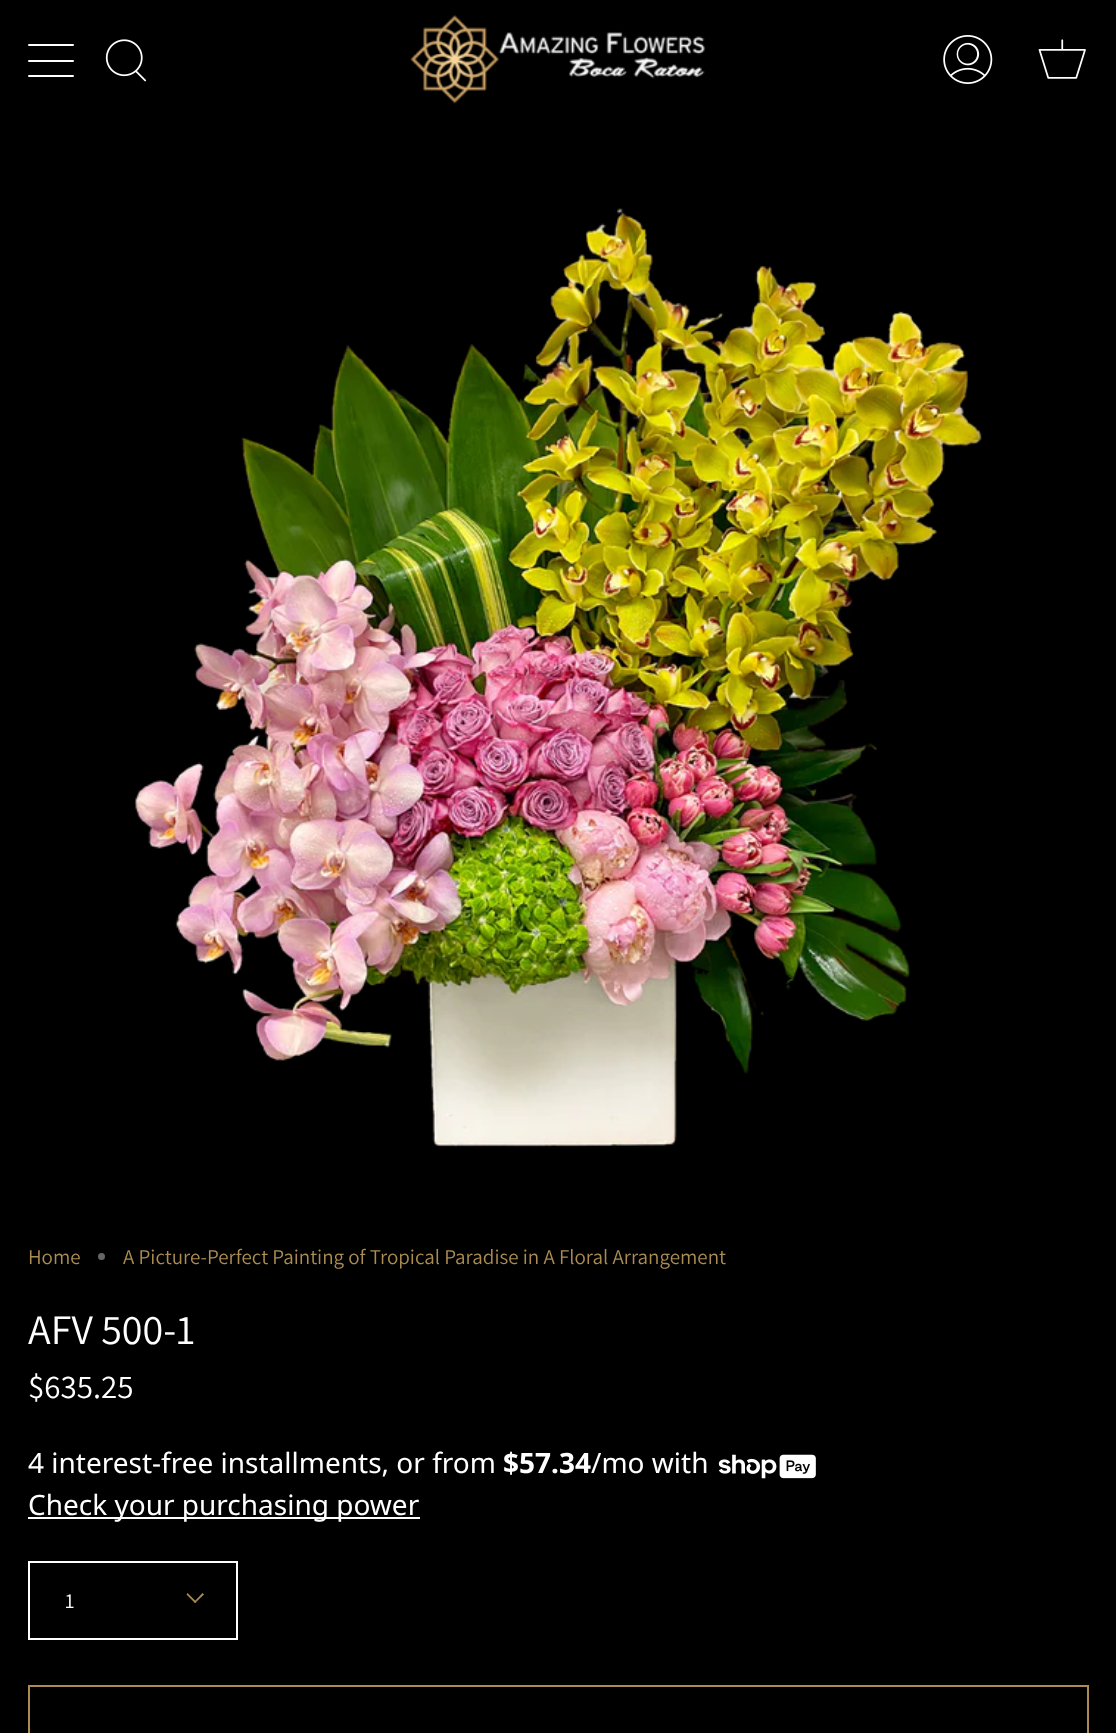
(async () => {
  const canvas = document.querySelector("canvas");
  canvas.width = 1116;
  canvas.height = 1733;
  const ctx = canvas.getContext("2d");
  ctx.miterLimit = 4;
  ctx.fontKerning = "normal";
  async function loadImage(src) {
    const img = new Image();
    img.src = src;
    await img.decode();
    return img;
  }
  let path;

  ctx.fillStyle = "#000000";
  ctx.fillRect(0, 0, 1116, 1733);
  ctx.fillStyle = "#ffffff";
  ctx.beginPath();
  ctx.roundRect(28, 44, 46, 2, 1);
  ctx.fill();
  ctx.beginPath();
  ctx.roundRect(28, 60, 46, 2, 1);
  ctx.fill();
  ctx.beginPath();
  ctx.roundRect(28, 75, 46, 2, 1);
  ctx.fill();
  ctx.drawImage(await loadImage("img/1.png"), 105, 39, 42, 43);
  ctx.drawImage(await loadImage("img/2.png"), 410, 15, 296, 89);
  ctx.drawImage(await loadImage("img/3.png"), 943, 35, 50, 49);
  ctx.drawImage(await loadImage("img/4.png"), 1038, 39, 48, 40);
  ctx.drawImage(await loadImage("img/5.png"), 134, 208, 848, 940);
  ctx.fillStyle = "#666666";
  ctx.beginPath();
  ctx.arc(101.5, 1256.5, 3.5, 0, Math.PI * 2);
  ctx.fill();
  ctx.drawImage(await loadImage("img/6.png"), 718, 1454, 98, 25);
  ctx.fillStyle = "#ffffff";
  ctx.fillRect(28, 1517, 392, 2);
  ctx.strokeStyle = "#ffffff";
  ctx.lineWidth = 2;
  ctx.strokeRect(29, 1562, 208, 77);
  ctx.fillStyle = "#ab8c52";
  path = new Path2D("M194 1602L202.5 1593L204 1594.5L195 1603Z");
  ctx.fill(path);
  path = new Path2D("M186.5 1594.5L187.5 1593L196.5 1602L195 1603Z");
  ctx.fill(path);
  ctx.strokeStyle = "#ab8c52";
  ctx.strokeRect(29, 1686, 1059, 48);
  ctx.font = "21px Assistant";
  ctx.fillText("Home", 28, 1264);
  ctx.fillText("A Picture-Perfect Painting of Tropical Paradise in A Floral Arrangement", 123, 1264);
  ctx.font = "42px Assistant";
  ctx.fillStyle = "#ffffff";
  ctx.fillText("AFV 500-1", 28, 1344);
  ctx.font = "33px Assistant";
  ctx.fillText("$635.25", 28, 1398);
  ctx.font = "28px Noto Sans";
  ctx.fillText("4 interest-free installments, or from", 28, 1473);
  ctx.font = "bold 28px Noto Sans";
  ctx.fillText("$57.34", 503, 1473);
  ctx.font = "28px Noto Sans";
  ctx.fillText("/mo with", 591, 1473);
  ctx.fillText("Check your purchasing power", 28, 1515);
  ctx.font = "21px Assistant";
  ctx.fillText("1", 65, 1608);
})();
